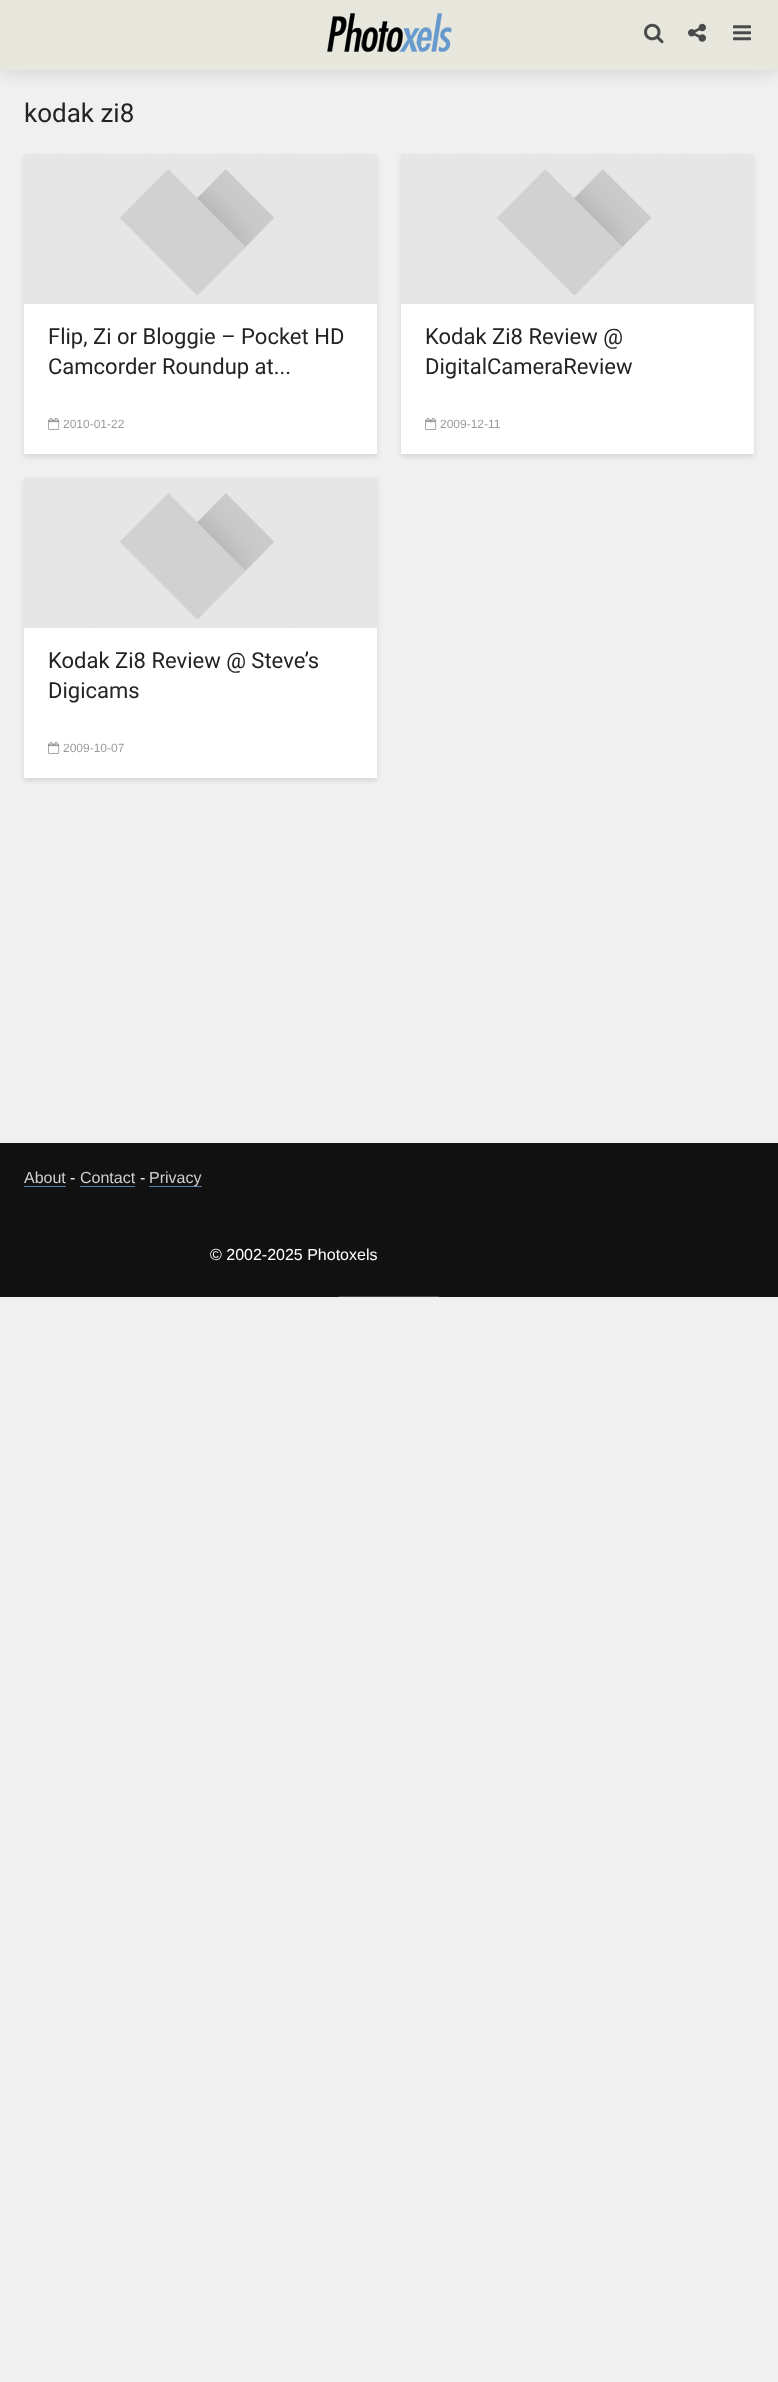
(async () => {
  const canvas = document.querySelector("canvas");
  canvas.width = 778;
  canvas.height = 2382;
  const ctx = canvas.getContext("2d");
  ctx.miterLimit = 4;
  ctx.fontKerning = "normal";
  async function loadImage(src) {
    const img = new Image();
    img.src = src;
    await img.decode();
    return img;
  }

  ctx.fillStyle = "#f0f0f0";
  ctx.fillRect(0, 0, 778, 2382);
  ctx.fillStyle = "rgba(0, 0, 0, 0.15)";
  ctx.filter = "blur(10px)";
  ctx.beginPath();
  ctx.rect(0, 0, 778, 70);
  ctx.fill();
  ctx.filter = "none";
  ctx.fillStyle = "#e7e7dd";
  ctx.fillRect(0, 0, 778, 70);
  ctx.drawImage(await loadImage("img/1.png"), 327, 13, 125, 39);
  ctx.drawImage(await loadImage("img/2.png"), 644, 23, 20, 21);
  ctx.drawImage(await loadImage("img/3.png"), 688, 23, 18, 19);
  ctx.drawImage(await loadImage("img/4.png"), 733, 25, 18, 16);
  ctx.fillStyle = "rgba(0, 1, 1, 0.1)";
  ctx.filter = "blur(2.5px)";
  ctx.beginPath();
  ctx.rect(24, 157, 353, 300);
  ctx.fill();
  ctx.filter = "none";
  ctx.fillStyle = "#ffffff";
  ctx.fillRect(24, 304, 353, 150);
  ctx.drawImage(await loadImage("img/5.png"), 24, 154, 353, 150);
  ctx.drawImage(await loadImage("img/6.png"), 48, 417, 12, 13);
  ctx.fillStyle = "rgba(0, 1, 1, 0.1)";
  ctx.filter = "blur(2.5px)";
  ctx.beginPath();
  ctx.rect(401, 157, 353, 300);
  ctx.fill();
  ctx.filter = "none";
  ctx.fillStyle = "#ffffff";
  ctx.fillRect(401, 304, 353, 150);
  ctx.drawImage(await loadImage("img/5.png"), 401, 154, 353, 150);
  ctx.drawImage(await loadImage("img/6.png"), 425, 417, 12, 13);
  ctx.fillStyle = "rgba(0, 1, 1, 0.1)";
  ctx.filter = "blur(2.5px)";
  ctx.beginPath();
  ctx.rect(24, 481, 353, 300);
  ctx.fill();
  ctx.filter = "none";
  ctx.fillStyle = "#ffffff";
  ctx.fillRect(24, 628, 353, 150);
  ctx.drawImage(await loadImage("img/5.png"), 24, 478, 353, 150);
  ctx.drawImage(await loadImage("img/6.png"), 48, 741, 12, 13);
  for (const [x, y, w, h, color] of [
    [0, 1143, 778, 154, "#111111"],
    [24, 1186, 42, 1, "#557ea7"],
    [80, 1186, 55, 1, "#557ea7"],
    [149, 1186, 53, 1, "#557ea7"],
    [339, 1296, 100, 1, "#414141"],
  ]) {
    ctx.fillStyle = color;
    ctx.fillRect(x, y, w, h);
  }
  ctx.font = "26px Roboto";
  ctx.fillStyle = "#232323";
  ctx.fillText("kodak zi8", 24, 122);
  ctx.font = "22px Roboto";
  ctx.fillText("Flip, Zi or Bloggie – Pocket HD", 48, 344);
  ctx.fillText("Camcorder Roundup at...", 48, 374);
  ctx.font = "12px Liberation Sans";
  ctx.fillStyle = "#9b9b9b";
  ctx.fillText("2010-01-22", 63, 428);
  ctx.font = "22px Roboto";
  ctx.fillStyle = "#232323";
  ctx.fillText("Kodak Zi8 Review @", 425, 344);
  ctx.fillText("DigitalCameraReview", 425, 374);
  ctx.font = "12px Liberation Sans";
  ctx.fillStyle = "#9b9b9b";
  ctx.fillText("2009-12-11", 440, 428);
  ctx.font = "22px Roboto";
  ctx.fillStyle = "#232323";
  ctx.fillText("Kodak Zi8 Review @ Steve’s", 48, 668);
  ctx.fillText("Digicams", 48, 698);
  ctx.font = "12px Liberation Sans";
  ctx.fillStyle = "#9b9b9b";
  ctx.fillText("2009-10-07", 63, 752);
  ctx.font = "16px Liberation Sans";
  ctx.fillStyle = "#cfcfcf";
  ctx.fillText("About", 24, 1183);
  ctx.fillStyle = "#ffffff";
  ctx.fillText("-", 70, 1183);
  ctx.fillStyle = "#cfcfcf";
  ctx.fillText("Contact", 80, 1183);
  ctx.fillStyle = "#ffffff";
  ctx.fillText("-", 140, 1183);
  ctx.fillStyle = "#cfcfcf";
  ctx.fillText("Privacy", 149, 1183);
  ctx.fillStyle = "#ffffff";
  ctx.fillText("© 2002-2025 Photoxels", 210, 1260);
})();
